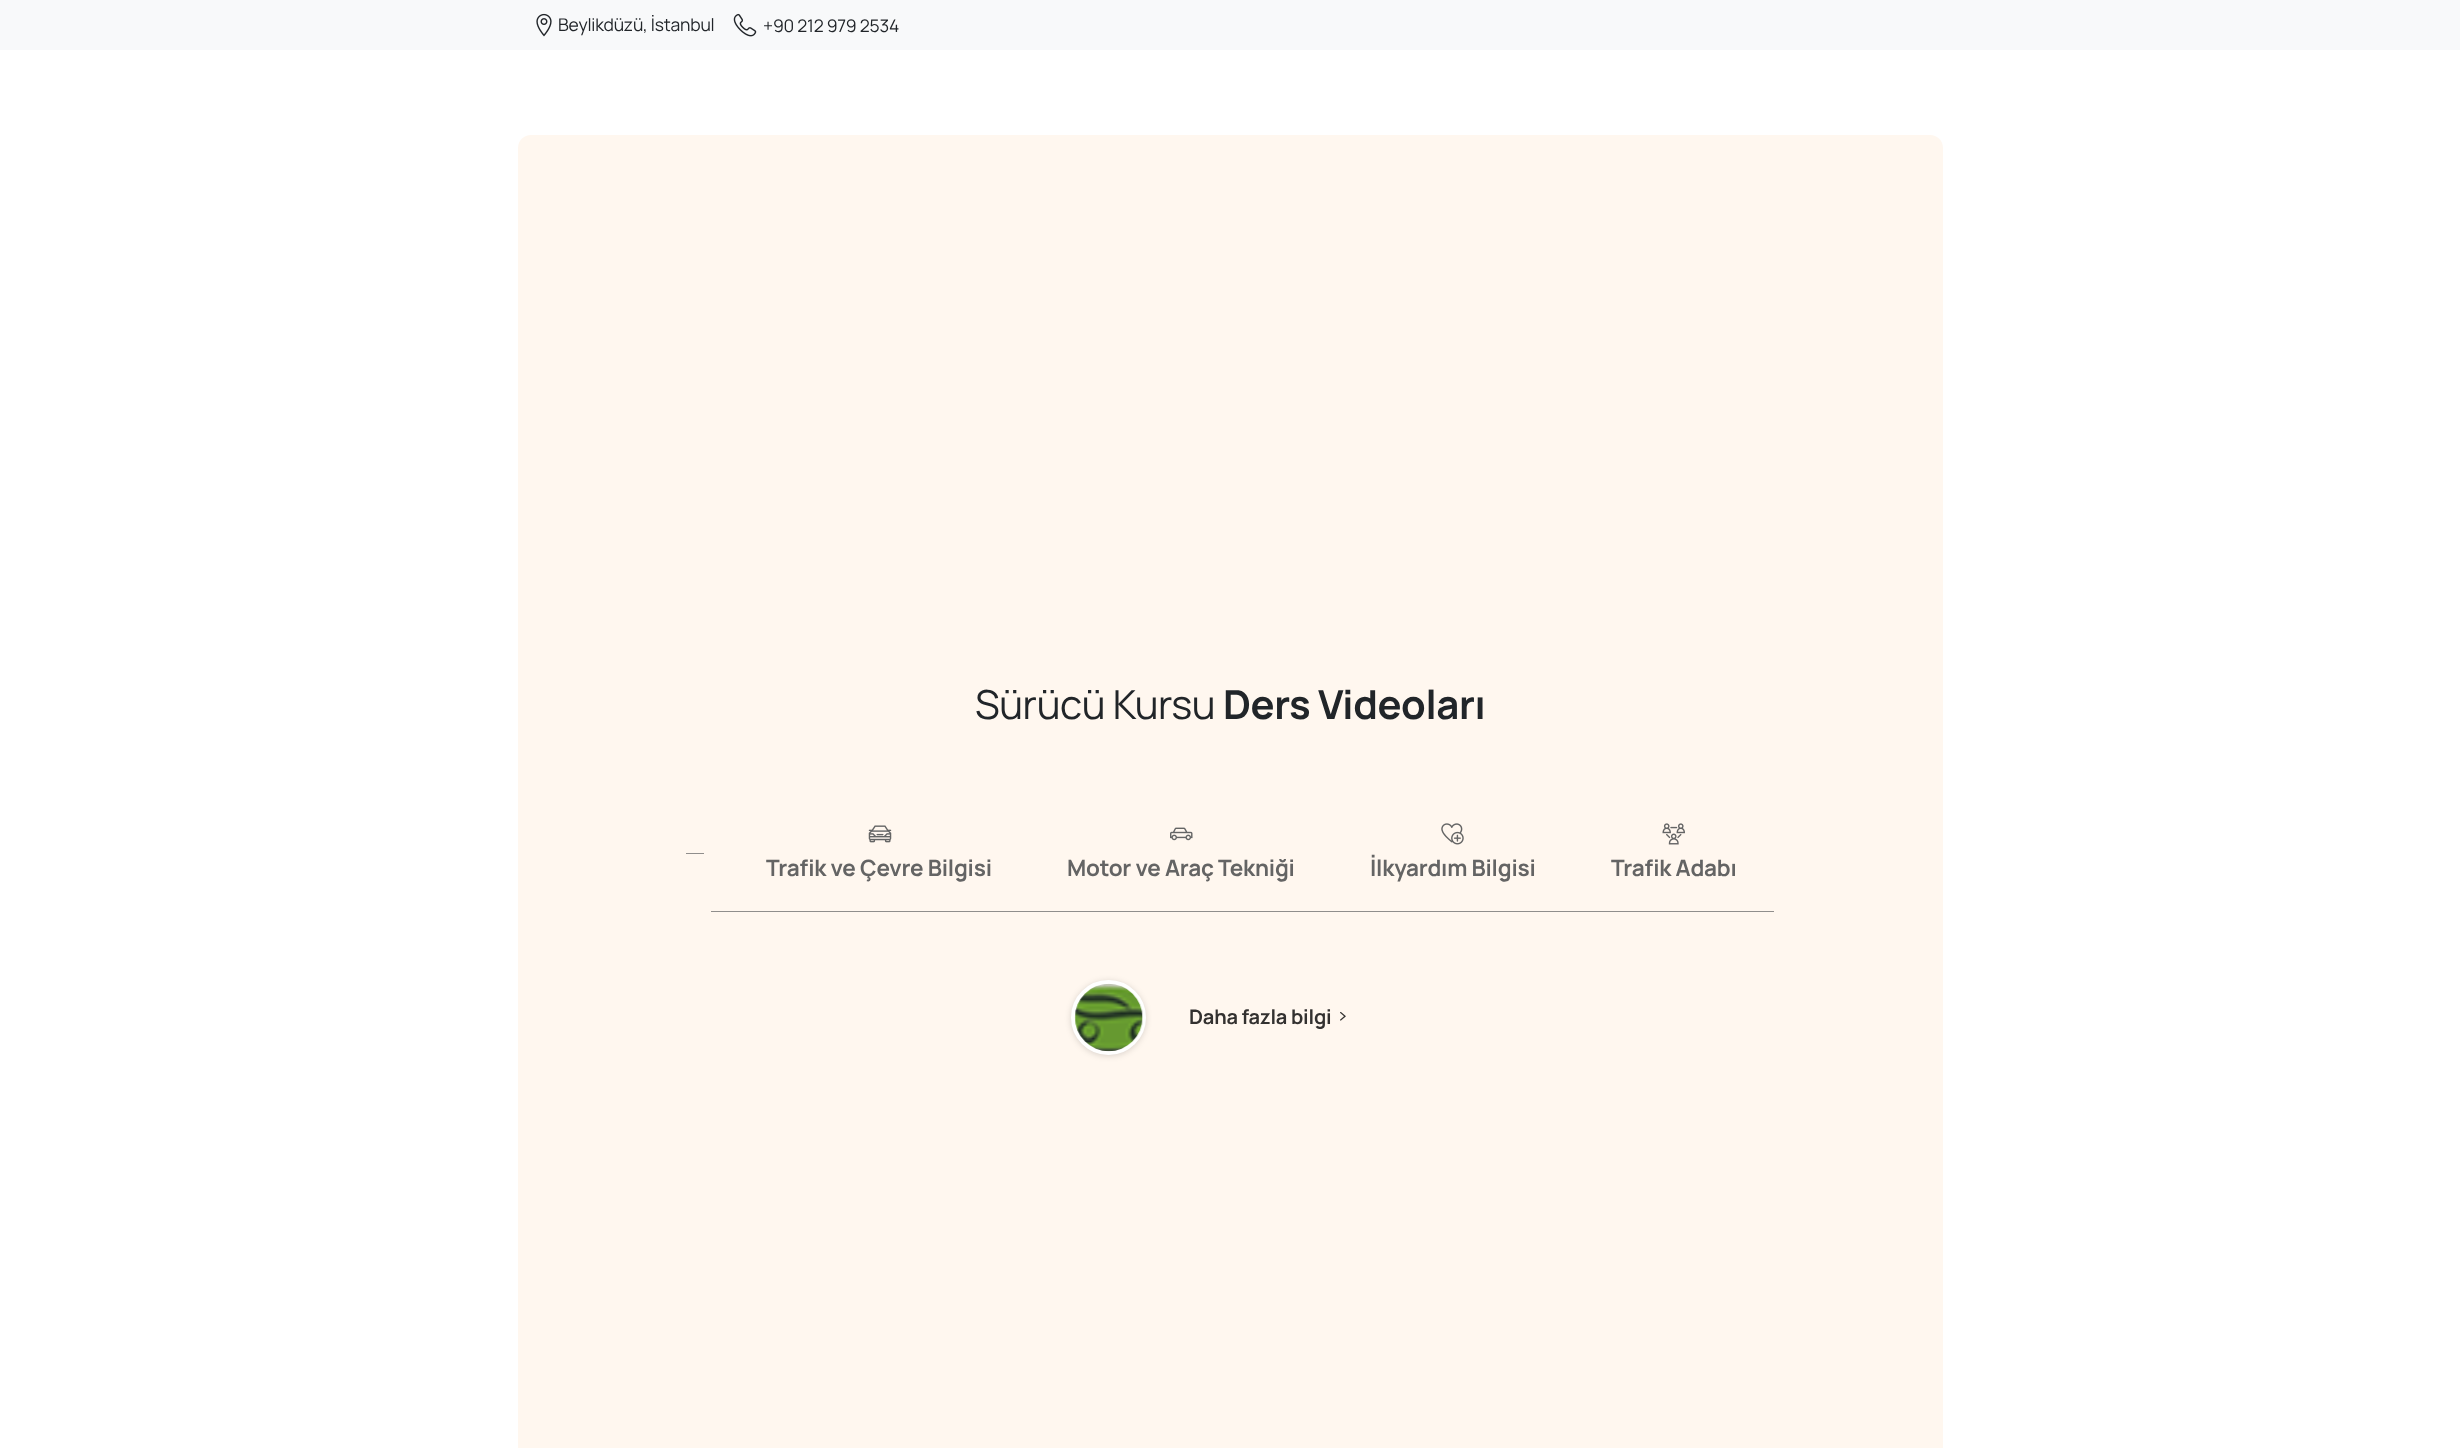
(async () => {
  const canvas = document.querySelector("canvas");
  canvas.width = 2460;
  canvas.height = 1448;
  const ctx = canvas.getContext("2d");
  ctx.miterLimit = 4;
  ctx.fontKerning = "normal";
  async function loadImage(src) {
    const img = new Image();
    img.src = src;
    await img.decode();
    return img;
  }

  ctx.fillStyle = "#ffffff";
  ctx.fillRect(0, 0, 2460, 1448);
  ctx.fillStyle = "#f8f9fa";
  ctx.fillRect(0, 0, 2460, 50);
  ctx.drawImage(await loadImage("img/1.png"), 536, 13, 16, 24);
  ctx.drawImage(await loadImage("img/2.png"), 733, 13, 24, 24);
  ctx.fillStyle = "#fff7ef";
  ctx.beginPath();
  ctx.roundRect(518, 135, 1425, 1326, 13);
  ctx.fill();
  ctx.fillStyle = "#908e8c";
  ctx.fillRect(686, 853, 18, 1);
  ctx.drawImage(await loadImage("img/3.png"), 868, 825, 24, 18);
  ctx.drawImage(await loadImage("img/4.png"), 1170, 827, 23, 14);
  ctx.drawImage(await loadImage("img/5.png"), 1441, 823, 23, 22);
  ctx.drawImage(await loadImage("img/6.png"), 1662, 823, 23, 22);
  ctx.fillRect(711, 911, 1063, 1);
  ctx.fillStyle = "rgba(0, 0, 0, 0.15)";
  ctx.filter = "blur(3px)";
  ctx.beginPath();
  ctx.roundRect(1071, 981, 75, 75, 37.5);
  ctx.fill();
  ctx.filter = "none";
  ctx.fillStyle = "#ffffff";
  ctx.beginPath();
  ctx.arc(1108.5, 1017.5, 35.5, 0, Math.PI * 2);
  ctx.fill();
  ctx.strokeStyle = "#ffffff";
  ctx.lineWidth = 4;
  ctx.stroke();
  ctx.drawImage(await loadImage("img/7.png"), 1074, 983, 69, 69);
  ctx.drawImage(await loadImage("img/8.png"), 1340, 1011, 6, 10);
  ctx.letterSpacing = "-0.2px";
  ctx.font = "17.5px Manrope";
  ctx.fillStyle = "#212529";
  ctx.fillText("Beylikdüzü, İstanbul", 558, 31);
  ctx.fillText("+90 212 979 2534", 763, 32);
  ctx.letterSpacing = "-0.4px";
  ctx.font = "40px Manrope";
  ctx.fillText("Sürücü Kursu", 975, 719);
  ctx.font = "bold 40px Manrope";
  ctx.fillText("Ders Videoları", 1223, 719);
  ctx.letterSpacing = "-0.2px";
  ctx.font = "bold 22.5px Manrope";
  ctx.fillStyle = "#646464";
  for (const [text, x, y] of [
    ["Trafik ve Çevre Bilgisi", 766, 876],
    ["Motor ve Araç Tekniği", 1067, 876],
    ["İlkyardım Bilgisi", 1370, 876],
    ["Trafik Adabı", 1611, 876],
  ]) {
    ctx.fillText(text, x, y);
  }
  ctx.font = "bold 20px Manrope";
  ctx.fillStyle = "#333130";
  ctx.fillText("Daha fazla bilgi", 1189, 1024);
})();
